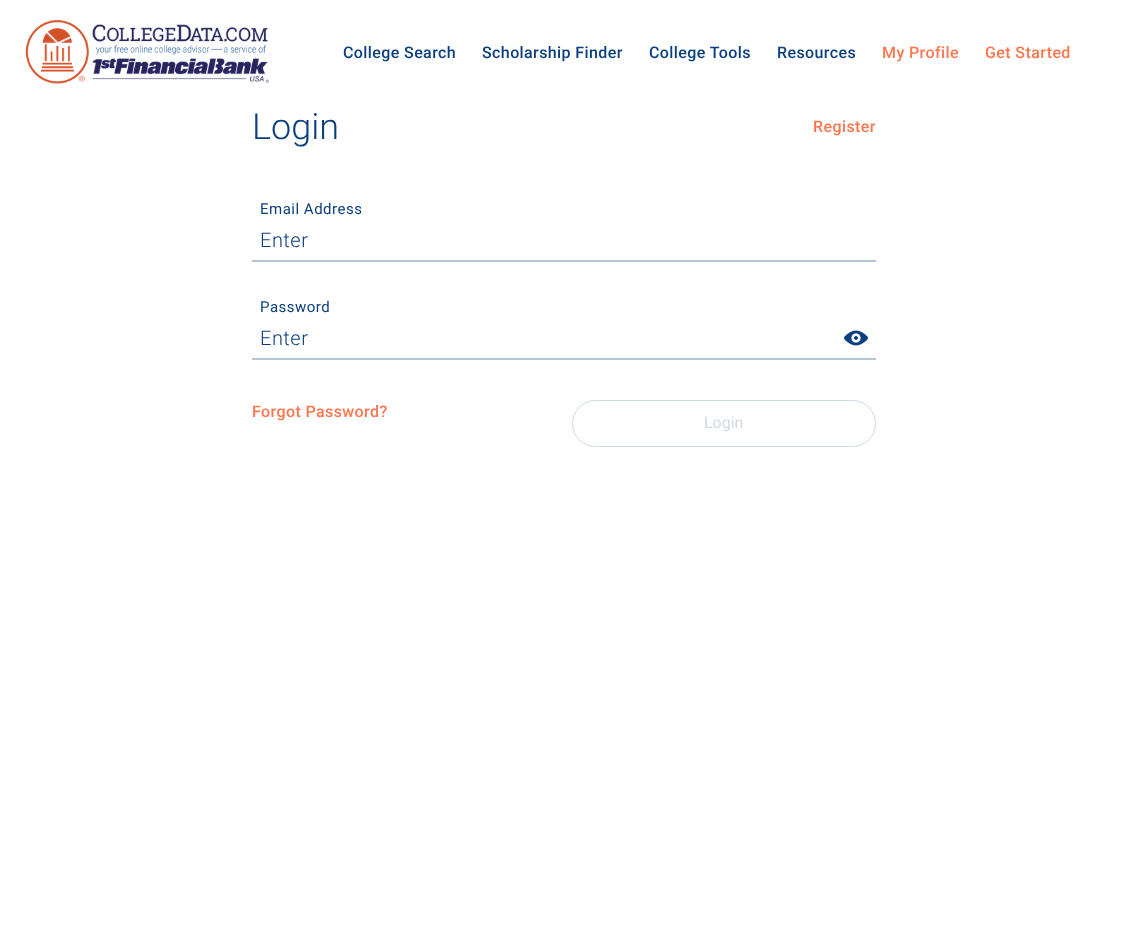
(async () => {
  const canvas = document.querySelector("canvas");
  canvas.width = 1127;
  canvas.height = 934;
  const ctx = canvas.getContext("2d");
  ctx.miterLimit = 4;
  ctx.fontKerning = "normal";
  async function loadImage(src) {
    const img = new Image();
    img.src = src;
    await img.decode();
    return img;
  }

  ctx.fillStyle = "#ffffff";
  ctx.fillRect(0, 0, 1127, 934);
  ctx.drawImage(await loadImage("img/1.png"), 25, 19, 244, 65);
  ctx.fillStyle = "#b5c5d8";
  ctx.fillRect(252, 260, 624, 2);
  ctx.drawImage(await loadImage("img/2.png"), 844, 330, 24, 16);
  ctx.fillRect(252, 358, 624, 2);
  ctx.beginPath();
  ctx.roundRect(572.5, 400.5, 303, 46, 23);
  ctx.strokeStyle = "#ced9e5";
  ctx.stroke();
  ctx.letterSpacing = "0.4px";
  ctx.font = "500 16px Roboto";
  ctx.fillStyle = "#0c3f7e";
  for (const [text, x, y] of [
    ["College Search", 343, 58],
    ["Scholarship Finder", 482, 58],
    ["College Tools", 649, 58],
    ["Resources", 777, 58],
  ]) {
    ctx.fillText(text, x, y);
  }
  ctx.fillStyle = "#ff764e";
  ctx.fillText("My Profile", 882, 58);
  ctx.fillText("Get Started", 985, 58);
  ctx.letterSpacing = "0px";
  ctx.font = "300 36px Roboto";
  ctx.fillStyle = "#0c3f7e";
  ctx.fillText("Login", 252, 139);
  ctx.letterSpacing = "0.4px";
  ctx.font = "500 16px Roboto";
  ctx.fillStyle = "#ff764e";
  ctx.fillText("Register", 813, 132);
  ctx.letterSpacing = "0.5px";
  ctx.font = "15px Roboto";
  ctx.fillStyle = "#0c3f7e";
  ctx.fillText("Email Address", 260, 214);
  ctx.font = "300 20px Roboto";
  ctx.fillText("Enter", 260, 247);
  ctx.font = "15px Roboto";
  ctx.fillText("Password", 260, 312);
  ctx.font = "300 20px Roboto";
  ctx.fillText("Enter", 260, 345);
  ctx.letterSpacing = "0.4px";
  ctx.font = "500 16px Roboto";
  ctx.fillStyle = "#ff764e";
  ctx.fillText("Forgot Password?", 252, 417);
  ctx.letterSpacing = "0px";
  ctx.font = "16px Roboto";
  ctx.fillStyle = "#ced9e5";
  ctx.fillText("Login", 704, 428);
})();
